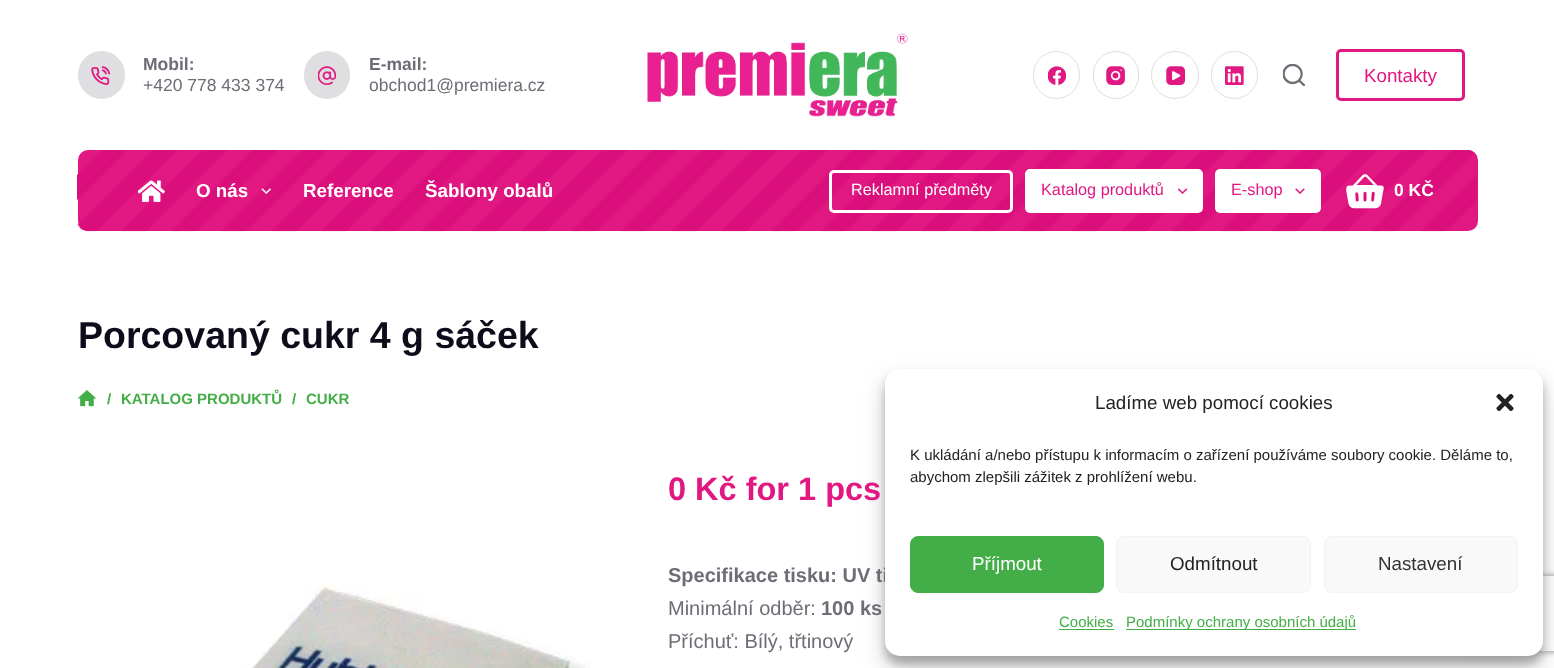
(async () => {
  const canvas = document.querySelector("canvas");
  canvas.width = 1554;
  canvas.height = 668;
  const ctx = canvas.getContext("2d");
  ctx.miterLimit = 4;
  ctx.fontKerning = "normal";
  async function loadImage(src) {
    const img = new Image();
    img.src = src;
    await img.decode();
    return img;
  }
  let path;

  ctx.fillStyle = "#ffffff";
  ctx.fillRect(0, 0, 1554, 668);
  ctx.fillStyle = "#dfdfe2";
  ctx.beginPath();
  ctx.roundRect(78, 51, 47, 48, 23.5);
  ctx.fill();
  ctx.drawImage(await loadImage("img/1.png"), 91, 66, 19, 19);
  ctx.beginPath();
  ctx.roundRect(304, 51, 46, 48, 23);
  ctx.fill();
  ctx.drawImage(await loadImage("img/2.png"), 318, 66, 18, 19);
  ctx.drawImage(await loadImage("img/3.png"), 647, 33, 261, 84);
  ctx.beginPath();
  ctx.roundRect(1033.5, 51.5, 46, 47, 23);
  ctx.strokeStyle = "#dfdfe2";
  ctx.stroke();
  ctx.drawImage(await loadImage("img/4.png"), 1048, 66, 18, 19);
  ctx.beginPath();
  ctx.roundRect(1093.5, 51.5, 45, 47, 22.5);
  ctx.stroke();
  ctx.drawImage(await loadImage("img/5.png"), 1106, 66, 19, 19);
  ctx.beginPath();
  ctx.arc(1175, 75, 23.5, 0, Math.PI * 2);
  ctx.stroke();
  ctx.drawImage(await loadImage("img/6.png"), 1166, 66, 19, 19);
  ctx.beginPath();
  ctx.roundRect(1211.5, 51.5, 46, 47, 23);
  ctx.stroke();
  ctx.drawImage(await loadImage("img/7.png"), 1225, 66, 19, 19);
  ctx.drawImage(await loadImage("img/8.png"), 1283, 64, 22, 22);
  ctx.beginPath();
  ctx.roundRect(1337.5, 50.5, 126, 49, 3.5);
  ctx.strokeStyle = "#e11882";
  ctx.lineWidth = 3;
  ctx.stroke();
  ctx.fillStyle = "#e11882";
  ctx.beginPath();
  ctx.roundRect(78, 150, 1400, 81, 10);
  ctx.fill();
  ctx.drawImage(await loadImage("img/9.png"), 77, 150, 1400, 82);
  ctx.drawImage(await loadImage("img/10.png"), 138, 180, 27, 22);
  ctx.drawImage(await loadImage("img/11.png"), 261, 188, 10, 6);
  ctx.beginPath();
  ctx.roundRect(830.5, 171.5, 181, 40, 3.5);
  ctx.strokeStyle = "#ffffff";
  ctx.stroke();
  ctx.fillStyle = "#ffffff";
  ctx.beginPath();
  ctx.roundRect(1025, 169, 178, 44, 5);
  ctx.fill();
  ctx.drawImage(await loadImage("img/12.png"), 1178, 188, 10, 6);
  ctx.beginPath();
  ctx.roundRect(1215, 169, 106, 44, 5);
  ctx.fill();
  ctx.drawImage(await loadImage("img/13.png"), 1295, 188, 10, 6);
  ctx.drawImage(await loadImage("img/14.png"), 1346, 174, 38, 35);
  ctx.drawImage(await loadImage("img/15.png"), 78, 390, 18, 17);
  ctx.drawImage(await loadImage("img/16.png"), 247, 583, 343, 85);
  ctx.fillStyle = "rgba(0, 0, 0, 0.23)";
  ctx.filter = "blur(4px)";
  ctx.beginPath();
  ctx.roundRect(885, 376, 658, 288, 15);
  ctx.fill();
  ctx.filter = "none";
  ctx.fillStyle = "rgba(0, 0, 0, 0.19)";
  ctx.filter = "blur(12.5px)";
  ctx.beginPath();
  ctx.roundRect(885, 381, 658, 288, 15);
  ctx.fill();
  ctx.filter = "none";
  ctx.save();
  path = new Path2D("M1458 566H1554V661H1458ZM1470.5 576H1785.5C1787 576 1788 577 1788 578.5V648.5C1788 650 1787 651 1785.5 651H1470.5C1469 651 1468 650 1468 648.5V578.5C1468 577 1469 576 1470.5 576Z");
  ctx.clip(path, "evenodd");
  ctx.fillStyle = "#808080";
  ctx.filter = "blur(3px)";
  ctx.beginPath();
  ctx.roundRect(1468, 576, 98, 75, 2.5);
  ctx.fill();
  ctx.filter = "none";
  ctx.restore();
  ctx.font = "bold 17.5px Liberation Sans";
  ctx.fillStyle = "#6e6d76";
  ctx.fillText("Mobil:", 143, 70);
  ctx.font = "17.5px Liberation Sans";
  ctx.fillText("+420 778 433 374", 143, 91);
  ctx.font = "bold 17.5px Liberation Sans";
  ctx.fillText("E-mail:", 369, 70);
  ctx.font = "17.5px Liberation Sans";
  ctx.fillText("obchod1@premiera.cz", 369, 91);
  ctx.font = "18.75px Liberation Sans";
  ctx.fillStyle = "#e11882";
  ctx.fillText("Kontakty", 1364, 82);
  ctx.font = "bold 18.75px Liberation Sans";
  ctx.fillStyle = "#ffffff";
  for (const [text, x, y] of [
    ["O nás", 196, 197],
    ["Reference", 303, 197],
    ["Šablony obalů", 425, 197],
  ]) {
    ctx.fillText(text, x, y);
  }
  ctx.font = "16.25px Liberation Sans";
  ctx.fillText("Reklamní předměty", 851, 195);
  ctx.fillStyle = "#e11882";
  ctx.fillText("Katalog produktů", 1041, 195);
  ctx.fillText("E-shop", 1231, 195);
  ctx.font = "bold 17.5px Liberation Sans";
  ctx.fillStyle = "#ffffff";
  ctx.fillText("0 KČ", 1394, 196);
  ctx.font = "bold 37.5px Liberation Sans";
  ctx.fillStyle = "#0e0c1b";
  ctx.fillText("Porcovaný cukr 4 g sáček", 78, 348);
  ctx.font = "bold 15px Liberation Sans";
  ctx.fillStyle = "#43ae47";
  for (const [text, x, y] of [
    ["/", 107, 404],
    ["KATALOG PRODUKTŮ", 121, 404],
    ["/", 292, 404],
    ["CUKR", 306, 404],
  ]) {
    ctx.fillText(text, x, y);
  }
  ctx.font = "bold 32.5px Liberation Sans";
  ctx.fillStyle = "#e11882";
  ctx.fillText("0 Kč for 1 pcs", 668, 500);
  ctx.font = "bold 20px Liberation Sans";
  ctx.fillStyle = "#6e6d76";
  ctx.fillText("Specifikace tisku: UV ti", 668, 582);
  ctx.font = "20px Liberation Sans";
  ctx.fillText("Minimální odběr:", 668, 615);
  ctx.font = "bold 20px Liberation Sans";
  ctx.fillText("100 ks", 821, 615);
  ctx.font = "20px Liberation Sans";
  ctx.fillText("Příchuť: Bílý, třtinový", 668, 648);
  ctx.fillStyle = "#ffffff";
  ctx.beginPath();
  ctx.roundRect(885, 369, 658, 287, 15);
  ctx.fill();
  ctx.font = "18.75px Liberation Sans";
  ctx.fillStyle = "#222222";
  ctx.fillText("Ladíme web pomocí cookies", 1095, 409);
  ctx.drawImage(await loadImage("img/17.png"), 1496, 393, 18, 18);
  ctx.font = "15px Liberation Sans";
  ctx.fillText("K ukládání a/nebo přístupu k informacím o zařízení používáme soubory cookie. Děláme to,", 910, 460);
  ctx.fillText("abychom zlepšili zážitek z prohlížení webu.", 910, 482);
  ctx.fillStyle = "#43ae47";
  ctx.beginPath();
  ctx.roundRect(910.5, 536.5, 193, 56, 7.5);
  ctx.fill();
  ctx.strokeStyle = "#43ae47";
  ctx.lineWidth = 1;
  ctx.stroke();
  ctx.font = "18.75px Liberation Sans";
  ctx.fillStyle = "#ffffff";
  ctx.fillText("Příjmout", 972, 570);
  ctx.fillStyle = "#f9f9f9";
  ctx.beginPath();
  ctx.roundRect(1116.5, 536.5, 194, 56, 7.5);
  ctx.fill();
  ctx.strokeStyle = "#f2f2f2";
  ctx.stroke();
  ctx.fillStyle = "#222222";
  ctx.fillText("Odmítnout", 1170, 570);
  ctx.fillStyle = "#f9f9f9";
  ctx.beginPath();
  ctx.roundRect(1324.5, 536.5, 193, 56, 7.5);
  ctx.fill();
  ctx.stroke();
  ctx.fillStyle = "#333333";
  ctx.fillText("Nastavení", 1378, 570);
  ctx.font = "15px Liberation Sans";
  ctx.fillStyle = "#43ae47";
  ctx.fillText("Cookies", 1059, 627);
  ctx.fillRect(1059, 629, 55, 1);
  ctx.fillRect(1126, 629, 230, 1);
  ctx.fillText("Podmínky ochrany osobních údajů", 1126, 627);
})();
